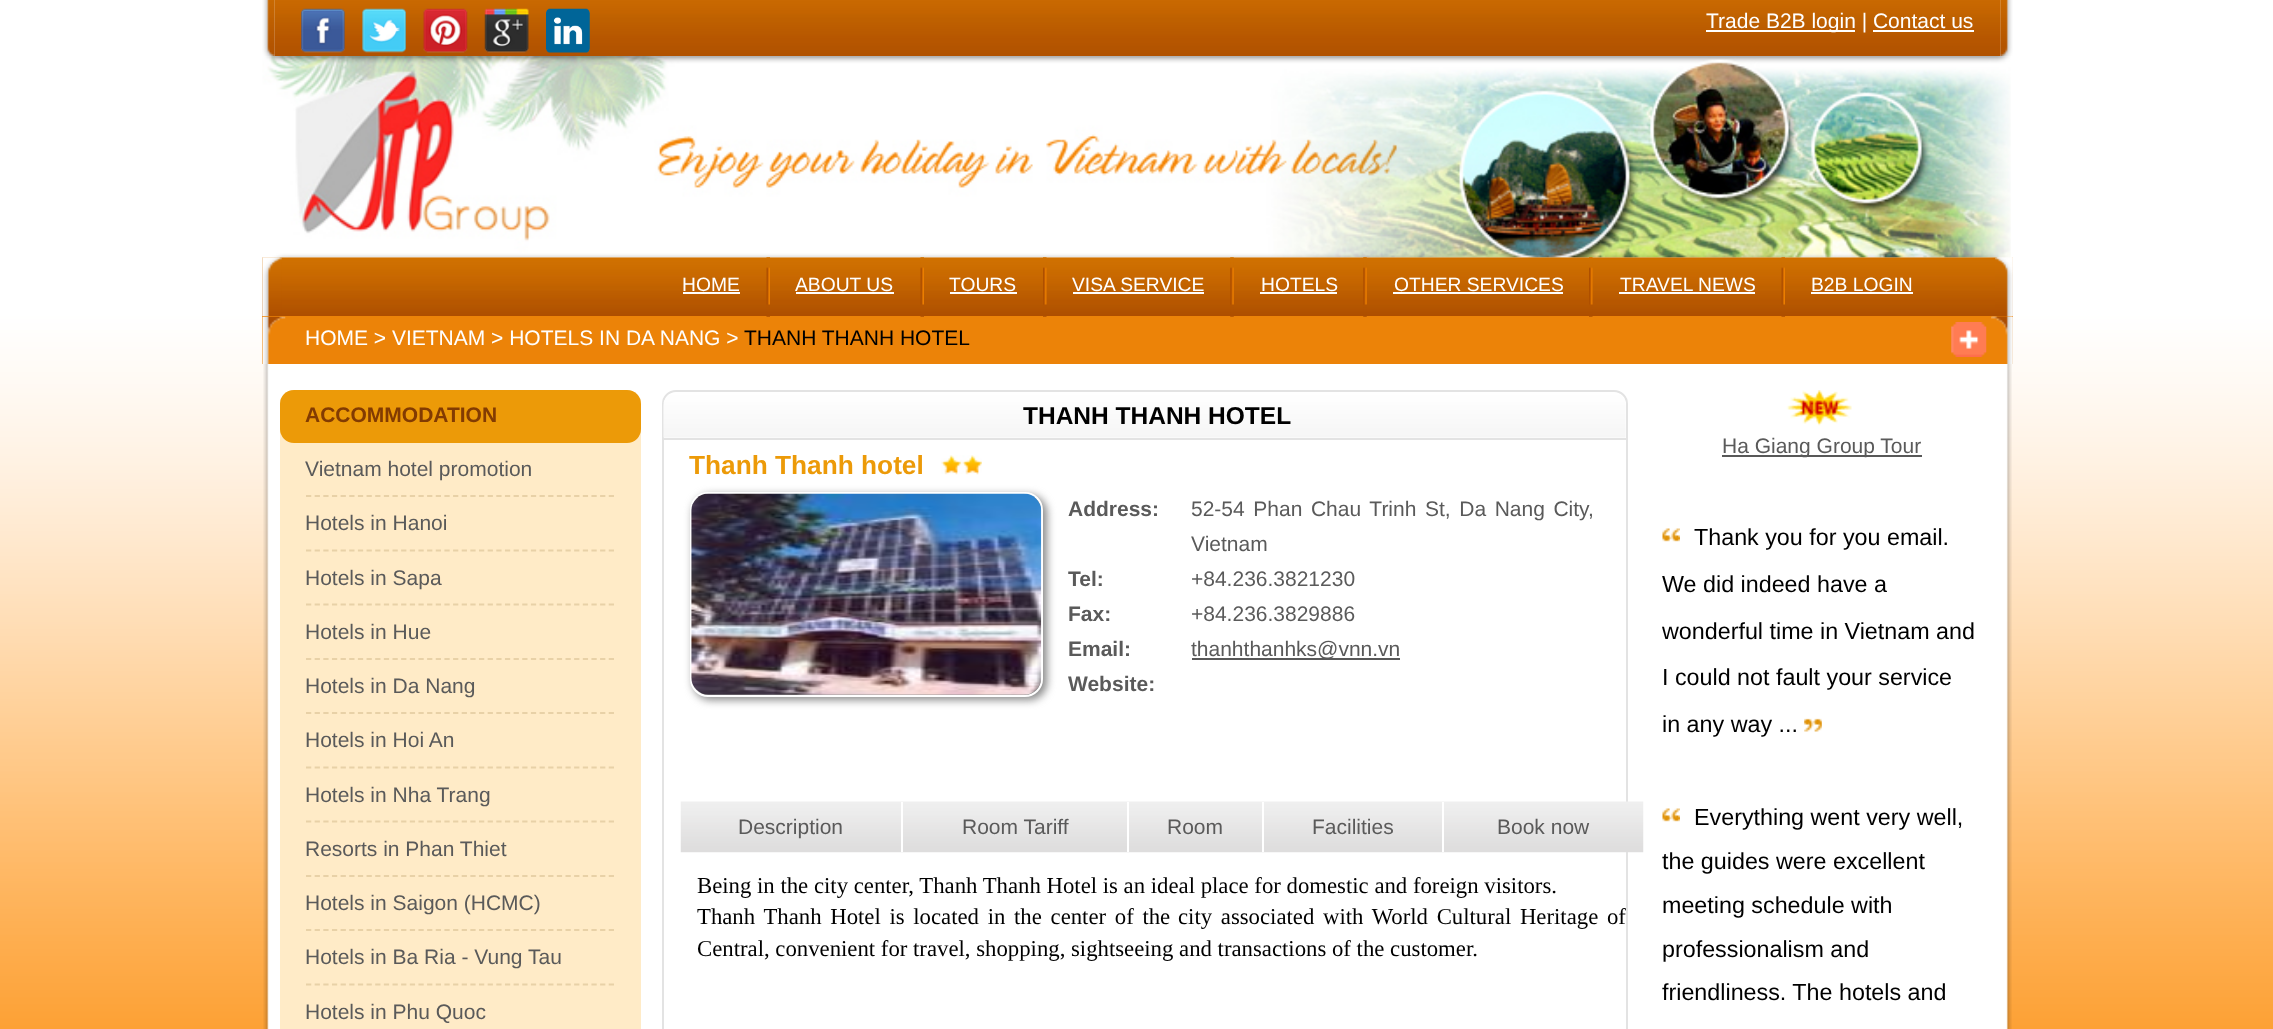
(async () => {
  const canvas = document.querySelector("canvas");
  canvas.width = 2273;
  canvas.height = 1029;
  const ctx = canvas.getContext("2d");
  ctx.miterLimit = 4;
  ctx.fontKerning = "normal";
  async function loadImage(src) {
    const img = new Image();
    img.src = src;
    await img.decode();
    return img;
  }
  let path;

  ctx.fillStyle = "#ffffff";
  ctx.fillRect(0, 0, 2273, 1029);
  ctx.drawImage(await loadImage("img/1.png"), 0, 0, 2273, 1029);
  ctx.drawImage(await loadImage("img/2.png"), 262, 0, 13, 56);
  ctx.drawImage(await loadImage("img/3.png"), 274, 0, 1727, 56);
  ctx.drawImage(await loadImage("img/4.png"), 301, 8, 44, 45);
  ctx.drawImage(await loadImage("img/5.png"), 362, 8, 44, 45);
  ctx.drawImage(await loadImage("img/6.png"), 423, 8, 45, 45);
  ctx.drawImage(await loadImage("img/7.png"), 484, 8, 45, 45);
  ctx.drawImage(await loadImage("img/8.png"), 546, 8, 44, 45);
  ctx.fillRect(1706, 30, 149, 2);
  ctx.fillRect(1873, 30, 101, 2);
  ctx.drawImage(await loadImage("img/9.png"), 2000, 0, 13, 56);
  ctx.drawImage(await loadImage("img/11.png"), 262, 257, 1751, 59);
  ctx.drawImage(await loadImage("img/12.png"), 262, 257, 20, 59);
  ctx.drawImage(await loadImage("img/13.png"), 1995, 257, 18, 59);
  ctx.drawImage(await loadImage("img/14.png"), 1995, 257, 18, 59);
  ctx.drawImage(await loadImage("img/15.png"), 1997, 257, 16, 59);
  ctx.drawImage(await loadImage("img/10.png"), 262, 56, 1749, 202);
  ctx.fillRect(683, 292, 57, 2);
  ctx.fillStyle = "#ec8308";
  ctx.fillRect(262, 316, 1751, 48);
  ctx.drawImage(await loadImage("img/16.png"), 766, 257, 4, 60);
  ctx.fillStyle = "#ffffff";
  ctx.fillRect(796, 292, 98, 2);
  ctx.drawImage(await loadImage("img/16.png"), 920, 257, 4, 60);
  ctx.fillRect(950, 292, 67, 2);
  ctx.drawImage(await loadImage("img/17.png"), 1043, 257, 4, 60);
  ctx.fillRect(1073, 292, 131, 2);
  ctx.drawImage(await loadImage("img/18.png"), 1230, 257, 4, 60);
  ctx.fillRect(1260, 292, 77, 2);
  ctx.drawImage(await loadImage("img/19.png"), 1363, 257, 4, 60);
  ctx.fillRect(1393, 292, 170, 2);
  ctx.drawImage(await loadImage("img/20.png"), 1589, 257, 4, 60);
  ctx.fillRect(1619, 292, 136, 2);
  ctx.drawImage(await loadImage("img/21.png"), 1781, 257, 4, 60);
  ctx.fillRect(1811, 292, 102, 2);
  ctx.drawImage(await loadImage("img/22.png"), 262, 316, 24, 48);
  ctx.drawImage(await loadImage("img/23.png"), 1991, 316, 22, 48);
  ctx.drawImage(await loadImage("img/24.png"), 1991, 316, 22, 48);
  ctx.drawImage(await loadImage("img/25.png"), 1991, 316, 22, 48);
  ctx.drawImage(await loadImage("img/26.png"), 1951, 322, 36, 35);
  ctx.drawImage(await loadImage("img/27.png"), 263, 364, 1749, 665);
  ctx.fillStyle = "#ffebc7";
  ctx.beginPath();
  ctx.roundRect(280, 390, 361, 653, 14);
  ctx.fill();
  ctx.fillStyle = "#ec9a08";
  ctx.beginPath();
  ctx.roundRect(280, 390, 361, 53, 14);
  ctx.fill();
  path = new Path2D("M306 496H614");
  ctx.strokeStyle = "#e8d1a7";
  ctx.lineWidth = 1.8;
  ctx.setLineDash([5.25, 3.4]);
  ctx.stroke(path);
  path = new Path2D("M306 550.5H614");
  ctx.stroke(path);
  path = new Path2D("M306 604.5H614");
  ctx.stroke(path);
  path = new Path2D("M306 659H614");
  ctx.stroke(path);
  path = new Path2D("M306 713H614");
  ctx.stroke(path);
  path = new Path2D("M306 767.5H614");
  ctx.stroke(path);
  path = new Path2D("M306 821.5H614");
  ctx.stroke(path);
  path = new Path2D("M306 876H614");
  ctx.stroke(path);
  path = new Path2D("M306 930H614");
  ctx.stroke(path);
  path = new Path2D("M306 984.5H614");
  ctx.stroke(path);
  ctx.beginPath();
  ctx.roundRect(663, 391, 964, 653, 13);
  ctx.strokeStyle = "#e3e3e3";
  ctx.lineWidth = 2;
  ctx.setLineDash([]);
  ctx.stroke();
  ctx.drawImage(await loadImage("img/28.png"), 663, 394, 963, 44);
  ctx.fillStyle = "#e3e3e3";
  ctx.fillRect(663, 438, 963, 2);
  ctx.drawImage(await loadImage("img/29.png"), 941, 455, 41, 20);
  ctx.fillStyle = "#888888";
  ctx.filter = "blur(4.5px)";
  ctx.beginPath();
  ctx.roundRect(693, 495, 354, 205, 18);
  ctx.fill();
  ctx.filter = "none";
  ctx.beginPath();
  ctx.roundRect(691, 493, 351, 203, 17);
  ctx.strokeStyle = "#ffffff";
  ctx.stroke();
  ctx.drawImage(await loadImage("img/30.png"), 691, 493, 351, 202);
  ctx.fillStyle = "#585858";
  ctx.fillRect(1192, 658, 208, 2);
  ctx.drawImage(await loadImage("img/31.png"), 680, 801, 964, 52);
  for (const [x, y, w, h, color] of [
    [901, 802, 2, 50, "#ffffff"],
    [1127, 802, 2, 50, "#ffffff"],
    [1262, 802, 2, 50, "#ffffff"],
    [1442, 802, 2, 50, "#ffffff"],
  ]) {
    ctx.fillStyle = color;
    ctx.fillRect(x, y, w, h);
  }
  ctx.drawImage(await loadImage("img/32.png"), 1786, 390, 66, 36);
  ctx.fillStyle = "#585858";
  ctx.fillRect(1722, 455, 200, 2);
  ctx.drawImage(await loadImage("img/33.png"), 1662, 528, 18, 14);
  ctx.drawImage(await loadImage("img/34.png"), 1804, 718, 18, 14);
  ctx.drawImage(await loadImage("img/33.png"), 1662, 808, 18, 14);
  ctx.font = "21px Liberation Sans";
  ctx.fillStyle = "#ffffff";
  ctx.fillText("Trade B2B login | Contact us", 1706, 28);
  ctx.font = "19.25px Liberation Sans";
  for (const [text, x, y] of [
    ["HOME", 682, 291],
    ["ABOUT US", 795, 291],
    ["TOURS", 949, 291],
    ["VISA SERVICE", 1072, 291],
    ["HOTELS", 1261, 291],
    ["OTHER SERVICES", 1394, 291],
    ["TRAVEL NEWS", 1620, 291],
    ["B2B LOGIN", 1811, 291],
  ]) {
    ctx.fillText(text, x, y);
  }
  ctx.font = "21px Liberation Sans";
  ctx.fillText("HOME > VIETNAM > HOTELS IN DA NANG >", 305, 345);
  ctx.fillStyle = "#000000";
  ctx.fillText("THANH THANH HOTEL", 744, 345);
  ctx.font = "bold 21px Liberation Sans";
  ctx.fillStyle = "#823b02";
  ctx.fillText("ACCOMMODATION", 305, 422);
  ctx.font = "21px Liberation Sans";
  ctx.fillStyle = "#5a5a5a";
  for (const [text, x, y] of [
    ["Vietnam hotel promotion", 305, 476],
    ["Hotels in Hanoi", 305, 530],
    ["Hotels in Sapa", 305, 585],
    ["Hotels in Hue", 305, 639],
    ["Hotels in Da Nang", 305, 693],
    ["Hotels in Hoi An", 305, 747],
    ["Hotels in Nha Trang", 305, 802],
    ["Resorts in Phan Thiet", 305, 856],
    ["Hotels in Saigon (HCMC)", 305, 910],
    ["Hotels in Ba Ria - Vung Tau", 305, 964],
    ["Hotels in Phu Quoc", 305, 1019],
  ]) {
    ctx.fillText(text, x, y);
  }
  ctx.font = "bold 24.5px Liberation Sans";
  ctx.fillStyle = "#000000";
  ctx.fillText("THANH THANH HOTEL", 1023, 424);
  ctx.font = "bold 26.25px Liberation Sans";
  ctx.fillStyle = "#ec9a08";
  ctx.fillText("Thanh Thanh hotel", 689, 474);
  ctx.font = "bold 21px Liberation Sans";
  ctx.fillStyle = "#5a5a5a";
  ctx.fillText("Address:", 1068, 516);
  ctx.wordSpacing = "2.75px";
  ctx.font = "21px Liberation Sans";
  ctx.fillText("52-54 Phan Chau Trinh St, Da Nang City,", 1191, 516);
  ctx.wordSpacing = "0px";
  ctx.fillText("Vietnam", 1191, 551);
  ctx.font = "bold 21px Liberation Sans";
  ctx.fillText("Tel:", 1068, 586);
  ctx.font = "21px Liberation Sans";
  ctx.fillText("+84.236.3821230", 1191, 586);
  ctx.font = "bold 21px Liberation Sans";
  ctx.fillText("Fax:", 1068, 621);
  ctx.font = "21px Liberation Sans";
  ctx.fillText("+84.236.3829886", 1191, 621);
  ctx.font = "bold 21px Liberation Sans";
  ctx.fillText("Email:", 1068, 656);
  ctx.font = "21px Liberation Sans";
  ctx.fillText("thanhthanhks@vnn.vn", 1191, 656);
  ctx.font = "bold 21px Liberation Sans";
  ctx.fillText("Website:", 1068, 691);
  ctx.font = "21px Liberation Sans";
  for (const [text, x, y] of [
    ["Description", 738, 834],
    ["Room Tariff", 962, 834],
    ["Room", 1167, 834],
    ["Facilities", 1312, 834],
    ["Book now", 1497, 834],
  ]) {
    ctx.fillText(text, x, y);
  }
  ctx.font = "22.75px Liberation Serif";
  ctx.fillStyle = "#000000";
  ctx.fillText("Being in the city center, Thanh Thanh Hotel is an ideal place for domestic and foreign visitors.", 697, 893);
  ctx.wordSpacing = "3px";
  ctx.fillText("Thanh Thanh Hotel is located in the center of the", 697, 924);
  ctx.fillText("city associated with World Cultural Heritage of", 1178, 924);
  ctx.wordSpacing = "0px";
  ctx.fillText("Central, convenient for travel, shopping, sightseeing and transactions of the customer.", 697, 956);
  ctx.font = "21px Liberation Sans";
  ctx.fillStyle = "#5a5a5a";
  ctx.fillText("Ha Giang Group Tour", 1722, 453);
  ctx.font = "23.3px Liberation Sans";
  ctx.fillStyle = "#000000";
  for (const [text, x, y] of [
    ["Thank you for you email.", 1694, 545],
    ["We did indeed have a", 1662, 592],
    ["wonderful time in Vietnam and", 1662, 639],
    ["I could not fault your service", 1662, 685],
    ["in any way ...", 1662, 732],
    ["Everything went very well,", 1694, 825],
    ["the guides were excellent", 1662, 869],
    ["meeting schedule with", 1662, 913],
    ["professionalism and", 1662, 957],
    ["friendliness. The hotels and", 1662, 1000],
  ]) {
    ctx.fillText(text, x, y);
  }
})();
